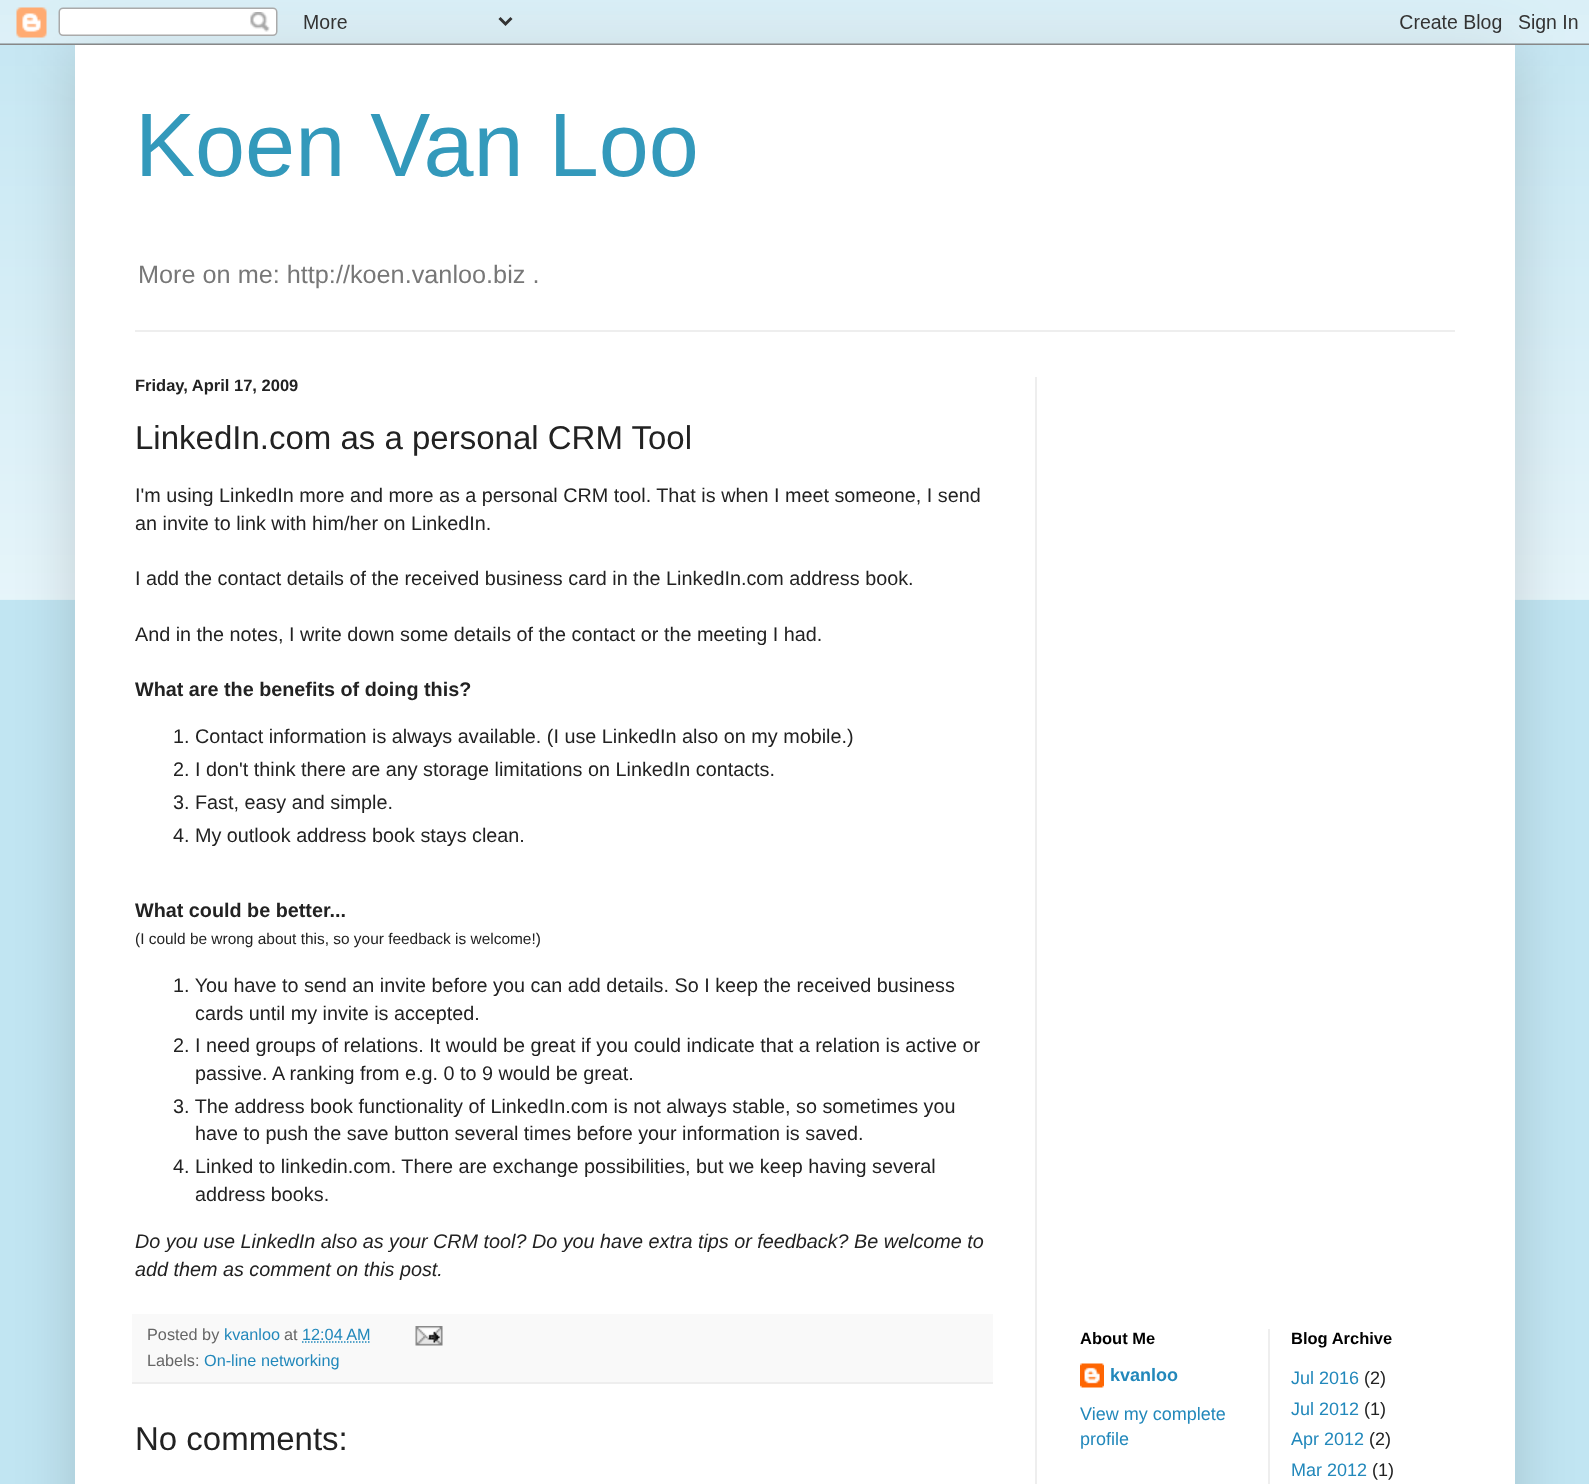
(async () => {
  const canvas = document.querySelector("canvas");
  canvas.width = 1589;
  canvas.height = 1484;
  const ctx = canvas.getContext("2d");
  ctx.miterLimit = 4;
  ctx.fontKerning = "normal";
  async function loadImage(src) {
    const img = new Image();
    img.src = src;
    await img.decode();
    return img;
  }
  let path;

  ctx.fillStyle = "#c1e5f2";
  ctx.fillRect(0, 0, 1589, 1484);
  ctx.drawImage(await loadImage("img/2.png"), 0, 15, 1589, 585);
  ctx.fillStyle = "rgba(0, 0, 0, 0.15)";
  ctx.filter = "blur(30px)";
  ctx.beginPath();
  ctx.rect(75, 45, 1440, 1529);
  ctx.fill();
  ctx.filter = "none";
  ctx.drawImage(await loadImage("img/1.png"), 0, 0, 1589, 45);
  for (const [x, y, w, h, color] of [
    [75, 45, 1440, 1439, "#ffffff"],
    [135, 330, 1320, 2, "#eeeeee"],
    [1035, 377, 2, 1107, "#eeeeee"],
    [132, 1314, 861, 68, "#f9f9f9"],
    [132, 1382, 861, 2, "#eeeeee"],
  ]) {
    ctx.fillStyle = color;
    ctx.fillRect(x, y, w, h);
  }
  path = new Path2D("M302 1342H370.5");
  ctx.strokeStyle = "#2288bb";
  ctx.lineWidth = 1.5;
  ctx.setLineDash([1.5, 1.5]);
  ctx.stroke(path);
  ctx.drawImage(await loadImage("img/3.png"), 415, 1326, 28, 20);
  ctx.drawImage(await loadImage("img/4.png"), 1080, 1363, 24, 25);
  ctx.fillRect(1268, 1329, 2, 155);
  ctx.font = "90px Liberation Sans";
  ctx.fillStyle = "#3399bb";
  ctx.fillText("Koen Van Loo", 135, 176);
  ctx.font = "25.25px Liberation Sans";
  ctx.fillStyle = "#777777";
  ctx.fillText("More on me: http://koen.vanloo.biz .", 138, 283);
  ctx.font = "bold 16.5px Liberation Sans";
  ctx.fillStyle = "#222222";
  ctx.fillText("Friday, April 17, 2009", 135, 391);
  ctx.font = "33px Liberation Sans";
  ctx.fillText("LinkedIn.com as a personal CRM Tool", 135, 449);
  ctx.font = "19.8px Liberation Sans";
  for (const [text, x, y] of [
    ["I'm using LinkedIn more and more as a personal CRM tool. That is when I meet someone, I send", 135, 502],
    ["an invite to link with him/her on LinkedIn.", 135, 530],
    ["I add the contact details of the received business card in the LinkedIn.com address book.", 135, 585],
    ["And in the notes, I write down some details of the contact or the meeting I had.", 135, 641],
  ]) {
    ctx.fillText(text, x, y);
  }
  ctx.font = "bold 19.8px Liberation Sans";
  ctx.fillText("What are the benefits of doing this?", 135, 696);
  ctx.font = "19.8px Liberation Sans";
  for (const [text, x, y] of [
    ["1. Contact information is always available. (I use LinkedIn also on my mobile.)", 173, 743],
    ["2. I don't think there are any storage limitations on LinkedIn contacts.", 173, 776],
    ["3. Fast, easy and simple.", 173, 809],
    ["4. My outlook address book stays clean.", 173, 842],
  ]) {
    ctx.fillText(text, x, y);
  }
  ctx.font = "bold 19.8px Liberation Sans";
  ctx.fillText("What could be better...", 135, 917);
  ctx.font = "15.45px Liberation Sans";
  ctx.fillText("(I could be wrong about this, so your feedback is welcome!)", 135, 944);
  ctx.font = "19.8px Liberation Sans";
  for (const [text, x, y] of [
    ["1. You have to send an invite before you can add details. So I keep the received business", 173, 992],
    ["cards until my invite is accepted.", 195, 1020],
    ["2. I need groups of relations. It would be great if you could indicate that a relation is active or", 173, 1052],
    ["passive. A ranking from e.g. 0 to 9 would be great.", 195, 1080],
    ["3. The address book functionality of LinkedIn.com is not always stable, so sometimes you", 173, 1113],
    ["have to push the save button several times before your information is saved.", 195, 1140],
    ["4. Linked to linkedin.com. There are exchange possibilities, but we keep having several", 173, 1173],
    ["address books.", 195, 1201],
  ]) {
    ctx.fillText(text, x, y);
  }
  ctx.font = "italic 19.8px Liberation Sans";
  ctx.fillText("Do you use LinkedIn also as your CRM tool? Do you have extra tips or feedback? Be welcome to", 135, 1248);
  ctx.fillText("add them as comment on this post.", 135, 1276);
  ctx.font = "16.25px Liberation Sans";
  ctx.fillStyle = "#666666";
  ctx.fillText("Posted by", 147, 1340);
  ctx.fillStyle = "#2288bb";
  ctx.fillText("kvanloo", 224, 1340);
  ctx.fillStyle = "#666666";
  ctx.fillText("at", 284, 1340);
  ctx.fillStyle = "#2288bb";
  ctx.fillText("12:04 AM", 302, 1340);
  ctx.fillStyle = "#666666";
  ctx.fillText("Labels:", 147, 1366);
  ctx.fillStyle = "#2288bb";
  ctx.fillText("On-line networking", 204, 1366);
  ctx.font = "33px Liberation Sans";
  ctx.fillStyle = "#222222";
  ctx.fillText("No comments:", 135, 1450);
  ctx.font = "bold 16.5px Liberation Sans";
  ctx.fillStyle = "#000000";
  ctx.fillText("About Me", 1080, 1344);
  ctx.font = "bold 18px Liberation Sans";
  ctx.fillStyle = "#2288bb";
  ctx.fillText("kvanloo", 1110, 1381);
  ctx.font = "18px Liberation Sans";
  ctx.fillText("View my complete", 1080, 1420);
  ctx.fillText("profile", 1080, 1445);
  ctx.font = "bold 16.5px Liberation Sans";
  ctx.fillStyle = "#000000";
  ctx.fillText("Blog Archive", 1291, 1344);
  ctx.font = "18px Liberation Sans";
  ctx.fillStyle = "#2288bb";
  ctx.fillText("Jul 2016", 1291, 1384);
  ctx.fillStyle = "#222222";
  ctx.fillText("(2)", 1364, 1384);
  ctx.fillStyle = "#2288bb";
  ctx.fillText("Jul 2012", 1291, 1415);
  ctx.fillStyle = "#222222";
  ctx.fillText("(1)", 1364, 1415);
  ctx.fillStyle = "#2288bb";
  ctx.fillText("Apr 2012", 1291, 1445);
  ctx.fillStyle = "#222222";
  ctx.fillText("(2)", 1369, 1445);
  ctx.fillStyle = "#2288bb";
  ctx.fillText("Mar 2012", 1291, 1476);
  ctx.fillStyle = "#222222";
  ctx.fillText("(1)", 1372, 1476);
})();
